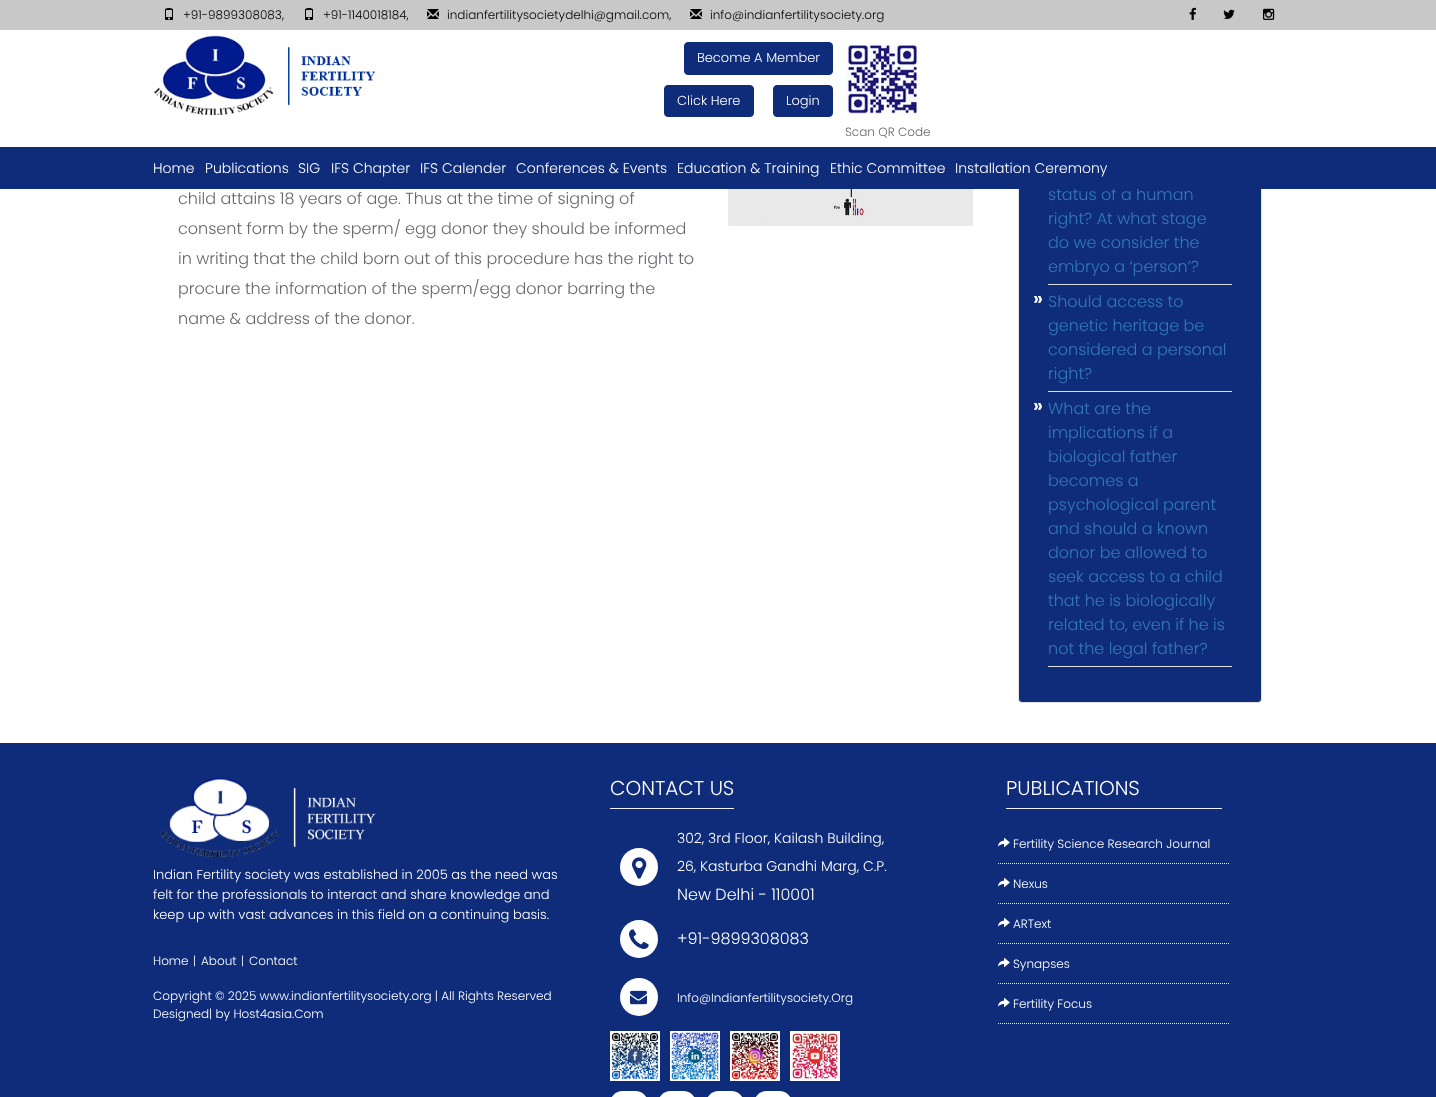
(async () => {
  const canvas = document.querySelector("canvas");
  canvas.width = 1436;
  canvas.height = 1097;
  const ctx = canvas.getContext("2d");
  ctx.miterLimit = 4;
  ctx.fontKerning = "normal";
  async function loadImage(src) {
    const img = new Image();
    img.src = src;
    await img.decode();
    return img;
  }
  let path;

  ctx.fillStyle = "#ffffff";
  ctx.fillRect(0, 0, 1436, 1097);
  ctx.fillStyle = "#0f2c7a";
  ctx.beginPath();
  ctx.roundRect(1018.5, 64.5, 243, 638, 3.5);
  ctx.fill();
  ctx.strokeStyle = "#e3e3e3";
  ctx.stroke();
  ctx.fillStyle = "#ffffff";
  ctx.fillRect(1018, 64, 244, 83);
  ctx.fillStyle = "#c8c8c8";
  ctx.fillRect(0, 0, 1436, 30);
  ctx.drawImage(await loadImage("img/1.png"), 165, 8, 8, 12);
  ctx.drawImage(await loadImage("img/1.png"), 305, 8, 8, 12);
  ctx.drawImage(await loadImage("img/2.png"), 427, 9, 12, 10);
  ctx.drawImage(await loadImage("img/2.png"), 690, 9, 12, 10);
  ctx.drawImage(await loadImage("img/3.png"), 1189, 7, 7, 13);
  ctx.drawImage(await loadImage("img/4.png"), 1223, 9, 12, 10);
  ctx.drawImage(await loadImage("img/5.png"), 1263, 8, 12, 12);
  ctx.drawImage(await loadImage("img/6.png"), 154, 35, 223, 80);
  ctx.fillStyle = "#0f2c7a";
  ctx.beginPath();
  ctx.roundRect(684.5, 42.5, 148, 32, 3.5);
  ctx.fill();
  ctx.strokeStyle = "#0f2c7a";
  ctx.stroke();
  ctx.beginPath();
  ctx.roundRect(664.5, 85.5, 89, 31, 3.5);
  ctx.fill();
  ctx.stroke();
  ctx.beginPath();
  ctx.roundRect(773.5, 85.5, 59, 31, 3.5);
  ctx.fill();
  ctx.stroke();
  ctx.drawImage(await loadImage("img/7.png"), 846, 43, 71, 71);
  ctx.drawImage(await loadImage("img/8.png"), 728, 189, 245, 37);
  for (const [x, y, w, h, color] of [
    [1048, 284, 184, 1, "#dddddd"],
    [1048, 391, 184, 1, "#dddddd"],
    [1048, 666, 184, 1, "#dddddd"],
    [0, 743, 1436, 354, "#0f2c7a"],
  ]) {
    ctx.fillStyle = color;
    ctx.fillRect(x, y, w, h);
  }
  ctx.drawImage(await loadImage("img/9.png"), 159, 778, 217, 79);
  ctx.fillStyle = "#eeeeee";
  ctx.fillRect(610, 808, 124, 1);
  ctx.fillStyle = "#ffffff";
  ctx.beginPath();
  ctx.arc(639, 867, 19, 0, Math.PI * 2);
  ctx.fill();
  ctx.drawImage(await loadImage("img/10.png"), 632, 857, 15, 22);
  ctx.beginPath();
  ctx.arc(639, 939, 19, 0, Math.PI * 2);
  ctx.fill();
  ctx.drawImage(await loadImage("img/11.png"), 629, 929, 20, 20);
  ctx.beginPath();
  ctx.arc(639, 997, 19, 0, Math.PI * 2);
  ctx.fill();
  ctx.drawImage(await loadImage("img/12.png"), 630, 990, 17, 15);
  ctx.drawImage(await loadImage("img/13.png"), 610, 1031, 50, 50);
  ctx.drawImage(await loadImage("img/14.png"), 670, 1031, 50, 50);
  ctx.drawImage(await loadImage("img/15.png"), 730, 1031, 50, 50);
  ctx.drawImage(await loadImage("img/16.png"), 790, 1031, 50, 50);
  ctx.beginPath();
  ctx.roundRect(610, 1091, 38, 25, 19);
  ctx.fill();
  ctx.beginPath();
  ctx.roundRect(658, 1091, 38, 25, 19);
  ctx.fill();
  ctx.beginPath();
  ctx.roundRect(706, 1091, 38, 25, 19);
  ctx.fill();
  ctx.beginPath();
  ctx.roundRect(754, 1091, 38, 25, 19);
  ctx.fill();
  ctx.fillStyle = "#eeeeee";
  ctx.fillRect(1006, 808, 216, 1);
  path = new Path2D("M998 863.5H1229");
  ctx.strokeStyle = "#e9e9ea";
  ctx.setLineDash([1, 1]);
  ctx.stroke(path);
  ctx.drawImage(await loadImage("img/17.png"), 998, 837, 12, 11);
  path = new Path2D("M998 903.5H1229");
  ctx.stroke(path);
  ctx.drawImage(await loadImage("img/17.png"), 998, 877, 12, 11);
  path = new Path2D("M998 943.5H1229");
  ctx.stroke(path);
  ctx.drawImage(await loadImage("img/17.png"), 998, 917, 12, 11);
  path = new Path2D("M998 983.5H1229");
  ctx.stroke(path);
  ctx.drawImage(await loadImage("img/17.png"), 998, 957, 12, 11);
  path = new Path2D("M998 1023.5H1229");
  ctx.stroke(path);
  ctx.drawImage(await loadImage("img/17.png"), 998, 997, 12, 11);
  ctx.font = "300 12px Poppins";
  ctx.fillStyle = "#000000";
  for (const [text, x, y] of [
    ["+91-9899308083,", 183, 19],
    ["+91-1140018184,", 323, 19],
    ["indianfertilitysocietydelhi@gmail.com,", 447, 19],
    ["info@indianfertilitysociety.org", 710, 19],
  ]) {
    ctx.fillText(text, x, y);
  }
  ctx.font = "300 13px Poppins";
  ctx.fillStyle = "#ffffff";
  for (const [text, x, y] of [
    ["Become A Member", 697, 62],
    ["Click Here", 677, 105],
    ["Login", 786, 105],
  ]) {
    ctx.fillText(text, x, y);
  }
  ctx.font = "300 12px Poppins";
  ctx.fillStyle = "#64686d";
  ctx.fillText("Scan QR Code", 845, 136);
  ctx.font = "300 16px Poppins";
  for (const [text, x, y] of [
    ["child attains 18 years of age. Thus at the time of signing of", 178, 204],
    ["consent form by the sperm/ egg donor they should be informed", 178, 234],
    ["in writing that the child born out of this procedure has the right to", 178, 264],
    ["procure the information of the sperm/egg donor barring the", 178, 294],
    ["name & address of the donor.", 178, 324],
  ]) {
    ctx.fillText(text, x, y);
  }
  ctx.fillStyle = "#337ab7";
  ctx.fillText("status of a human", 1048, 200);
  ctx.fillStyle = "#0f2c7a";
  ctx.fillRect(0, 147, 1436, 42);
  ctx.font = "300 14px Poppins";
  ctx.fillStyle = "#ffffff";
  for (const [text, x, y] of [
    ["Installation Ceremony", 955, 173],
    ["Ethic Committee", 830, 173],
    ["Education & Training", 677, 173],
    ["Conferences & Events", 516, 173],
    ["IFS Calender", 420, 173],
    ["IFS Chapter", 331, 173],
    ["SIG", 298, 173],
    ["Publications", 205, 173],
    ["Home", 153, 173],
  ]) {
    ctx.fillText(text, x, y);
  }
  ctx.font = "300 16px Poppins";
  ctx.fillStyle = "#337ab7";
  for (const [text, x, y] of [
    ["right? At what stage", 1048, 224],
    ["do we consider the", 1048, 248],
    ["embryo a ‘person’?", 1048, 272],
  ]) {
    ctx.fillText(text, x, y);
  }
  ctx.font = "600 19px Poppins";
  ctx.fillStyle = "#ffffff";
  ctx.fillText("»", 1033, 305);
  ctx.font = "300 16px Poppins";
  ctx.fillStyle = "#337ab7";
  for (const [text, x, y] of [
    ["Should access to", 1048, 307],
    ["genetic heritage be", 1048, 331],
    ["considered a personal", 1048, 355],
    ["right?", 1048, 379],
  ]) {
    ctx.fillText(text, x, y);
  }
  ctx.font = "600 19px Poppins";
  ctx.fillStyle = "#ffffff";
  ctx.fillText("»", 1033, 412);
  ctx.font = "300 16px Poppins";
  ctx.fillStyle = "#337ab7";
  for (const [text, x, y] of [
    ["What are the", 1048, 414],
    ["implications if a", 1048, 438],
    ["biological father", 1048, 462],
    ["becomes a", 1048, 486],
    ["psychological parent", 1048, 510],
    ["and should a known", 1048, 534],
    ["donor be allowed to", 1048, 558],
    ["seek access to a child", 1048, 582],
    ["that he is biologically", 1048, 606],
    ["related to, even if he is", 1048, 630],
    ["not the legal father?", 1048, 654],
  ]) {
    ctx.fillText(text, x, y);
  }
  ctx.font = "300 13px Poppins";
  ctx.fillStyle = "#ffffff";
  for (const [text, x, y] of [
    ["Indian Fertility society was established in 2005 as the need was", 153, 879],
    ["felt for the professionals to interact and share knowledge and", 153, 899],
    ["keep up with vast advances in this field on a continuing basis.", 153, 919],
  ]) {
    ctx.fillText(text, x, y);
  }
  ctx.font = "300 12px Poppins";
  for (const [text, x, y] of [
    ["Home", 153, 965],
    ["|", 193, 965],
    ["About", 201, 965],
    ["|", 241, 965],
    ["Contact", 249, 965],
    ["Copyright © 2025 www.indianfertilitysociety.org | All Rights Reserved", 153, 1000],
    ["Designed| by Host4asia.Com", 153, 1018],
  ]) {
    ctx.fillText(text, x, y);
  }
  ctx.font = "300 20px Poppins";
  ctx.fillText("CONTACT US", 610, 795);
  ctx.font = "300 14px Poppins";
  ctx.fillText("302, 3rd Floor, Kailash Building,", 677, 843);
  ctx.fillText("26, Kasturba Gandhi Marg, C.P.", 677, 871);
  ctx.font = "300 16px Poppins";
  ctx.fillText("New Delhi - 110001", 677, 900);
  ctx.fillText("+91-9899308083", 677, 944);
  ctx.font = "300 12px Poppins";
  ctx.fillText("Info@Indianfertilitysociety.Org", 677, 1002);
  ctx.font = "300 20px Poppins";
  ctx.fillText("PUBLICATIONS", 1006, 795);
  ctx.font = "300 12px Poppins";
  for (const [text, x, y] of [
    ["Fertility Science Research Journal", 1013, 848],
    ["Nexus", 1013, 888],
    ["ARText", 1013, 928],
    ["Synapses", 1013, 968],
    ["Fertility Focus", 1013, 1008],
  ]) {
    ctx.fillText(text, x, y);
  }
})();
